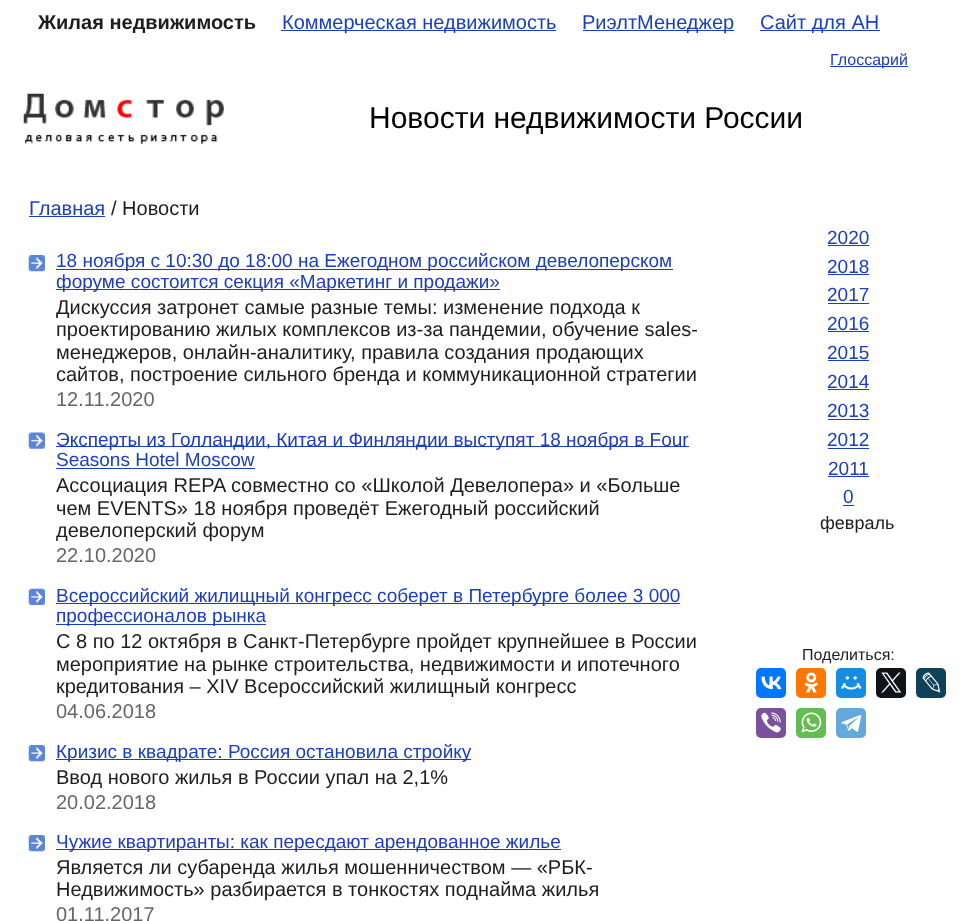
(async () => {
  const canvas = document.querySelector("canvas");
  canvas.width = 963;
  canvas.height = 921;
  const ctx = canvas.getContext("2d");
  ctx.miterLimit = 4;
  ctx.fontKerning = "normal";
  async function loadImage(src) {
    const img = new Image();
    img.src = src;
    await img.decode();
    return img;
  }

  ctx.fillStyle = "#ffffff";
  ctx.fillRect(0, 0, 963, 921);
  for (const [x, y, w, h, color] of [
    [281, 30, 275, 1, "#1a3dc1"],
    [583, 30, 151, 1, "#1a3dc1"],
    [760, 30, 120, 1, "#1a3dc1"],
    [830, 66, 78, 1, "#1a3dc1"],
  ]) {
    ctx.fillStyle = color;
    ctx.fillRect(x, y, w, h);
  }
  ctx.drawImage(await loadImage("img/1.png"), 23, 93, 201, 51);
  ctx.fillRect(29, 216, 76, 1);
  ctx.drawImage(await loadImage("img/2.png"), 28, 255, 17, 17);
  ctx.fillRect(56, 269, 617, 1);
  ctx.fillRect(56, 289, 444, 1);
  ctx.drawImage(await loadImage("img/3.png"), 28, 432, 17, 17);
  ctx.fillRect(56, 446, 633, 1);
  ctx.fillRect(56, 468, 199, 1);
  ctx.drawImage(await loadImage("img/4.png"), 28, 588, 17, 17);
  ctx.fillRect(56, 603, 624, 1);
  ctx.fillRect(56, 624, 210, 1);
  ctx.drawImage(await loadImage("img/2.png"), 28, 745, 17, 17);
  ctx.fillRect(56, 759, 415, 1);
  ctx.drawImage(await loadImage("img/2.png"), 28, 835, 17, 17);
  for (const [x, y, w, h, color] of [
    [56, 849, 505, 1, "#1a3dc1"],
    [828, 245, 41, 1, "#1a3dc1"],
    [828, 274, 41, 1, "#1a3dc1"],
    [828, 303, 41, 1, "#1a3dc1"],
    [828, 331, 41, 1, "#1a3dc1"],
    [828, 360, 41, 1, "#1a3dc1"],
    [828, 389, 41, 1, "#1a3dc1"],
    [828, 419, 41, 1, "#1a3dc1"],
    [828, 448, 41, 1, "#1a3dc1"],
    [828, 476, 41, 1, "#1a3dc1"],
    [843, 505, 11, 1, "#1a3dc1"],
  ]) {
    ctx.fillStyle = color;
    ctx.fillRect(x, y, w, h);
  }
  ctx.fillStyle = "#0077ff";
  ctx.beginPath();
  ctx.roundRect(756, 668, 30, 30, 5);
  ctx.fill();
  ctx.drawImage(await loadImage("img/5.png"), 761, 676, 21, 14);
  ctx.fillStyle = "#ff7700";
  ctx.beginPath();
  ctx.roundRect(796, 668, 30, 30, 5);
  ctx.fill();
  ctx.drawImage(await loadImage("img/6.png"), 804, 672, 14, 21);
  ctx.fillStyle = "#168de2";
  ctx.beginPath();
  ctx.roundRect(836, 668, 30, 30, 5);
  ctx.fill();
  ctx.drawImage(await loadImage("img/7.png"), 841, 676, 21, 14);
  ctx.fillStyle = "#0f1419";
  ctx.beginPath();
  ctx.roundRect(876, 668, 30, 30, 5);
  ctx.fill();
  ctx.drawImage(await loadImage("img/8.png"), 881, 672, 21, 21);
  ctx.fillStyle = "#0d425a";
  ctx.beginPath();
  ctx.roundRect(916, 668, 30, 30, 5);
  ctx.fill();
  ctx.drawImage(await loadImage("img/9.png"), 922, 672, 19, 21);
  ctx.fillStyle = "#7b519d";
  ctx.beginPath();
  ctx.roundRect(756, 708, 30, 30, 5);
  ctx.fill();
  ctx.drawImage(await loadImage("img/10.png"), 761, 712, 20, 21);
  ctx.fillStyle = "#65bc54";
  ctx.beginPath();
  ctx.roundRect(796, 708, 30, 30, 5);
  ctx.fill();
  ctx.drawImage(await loadImage("img/11.png"), 801, 712, 21, 21);
  ctx.fillStyle = "#64a9dc";
  ctx.beginPath();
  ctx.roundRect(836, 708, 30, 30, 5);
  ctx.fill();
  ctx.drawImage(await loadImage("img/12.png"), 841, 715, 21, 17);
  ctx.font = "bold 20px Liberation Sans";
  ctx.fillStyle = "#1e1d1d";
  ctx.fillText("Жилая недвижимость", 38, 29);
  ctx.font = "20px Liberation Sans";
  ctx.fillStyle = "#1a3dc1";
  for (const [text, x, y] of [
    ["Коммерческая недвижимость", 282, 29],
    ["РиэлтМенеджер", 582, 29],
    ["Сайт для АН", 760, 29],
  ]) {
    ctx.fillText(text, x, y);
  }
  ctx.font = "16px Liberation Sans";
  ctx.fillText("Глоссарий", 830, 65);
  ctx.font = "30px Liberation Sans";
  ctx.fillStyle = "#000000";
  ctx.fillText("Новости недвижимости России", 369, 128);
  ctx.font = "20px Liberation Sans";
  ctx.fillStyle = "#1a3dc1";
  ctx.fillText("Главная", 29, 215);
  ctx.fillStyle = "#1e1d1d";
  ctx.fillText("/ Новости", 111, 215);
  ctx.font = "19px Liberation Sans";
  ctx.fillStyle = "#1a3dc1";
  ctx.fillText("18 ноября с 10:30 до 18:00 на Ежегодном российском девелоперском", 56, 267);
  ctx.fillText("форуме состоится секция «Маркетинг и продажи»", 56, 288);
  ctx.font = "20px Liberation Sans";
  ctx.fillStyle = "#1e1d1d";
  for (const [text, x, y] of [
    ["Дискуссия затронет самые разные темы: изменение подхода к", 56, 314],
    ["проектированию жилых комплексов из-за пандемии, обучение sales-", 56, 336],
    ["менеджеров, онлайн-аналитику, правила создания продающих", 56, 359],
    ["сайтов, построение сильного бренда и коммуникационной стратегии", 56, 381],
  ]) {
    ctx.fillText(text, x, y);
  }
  ctx.fillStyle = "#666666";
  ctx.fillText("12.11.2020", 56, 406);
  ctx.font = "19px Liberation Sans";
  ctx.fillStyle = "#1a3dc1";
  ctx.fillText("Эксперты из Голландии, Китая и Финляндии выступят 18 ноября в Four", 56, 446);
  ctx.fillText("Seasons Hotel Moscow", 56, 466);
  ctx.font = "20px Liberation Sans";
  ctx.fillStyle = "#1e1d1d";
  for (const [text, x, y] of [
    ["Ассоциация REPA совместно со «Школой Девелопера» и «Больше", 56, 492],
    ["чем EVENTS» 18 ноября проведёт Ежегодный российский", 56, 515],
    ["девелоперский форум", 56, 537],
  ]) {
    ctx.fillText(text, x, y);
  }
  ctx.fillStyle = "#666666";
  ctx.fillText("22.10.2020", 56, 562);
  ctx.font = "19px Liberation Sans";
  ctx.fillStyle = "#1a3dc1";
  ctx.fillText("Всероссийский жилищный конгресс соберет в Петербурге более 3 000", 56, 602);
  ctx.fillText("профессионалов рынка", 56, 622);
  ctx.font = "20px Liberation Sans";
  ctx.fillStyle = "#1e1d1d";
  for (const [text, x, y] of [
    ["С 8 по 12 октября в Санкт-Петербурге пройдет крупнейшее в России", 56, 648],
    ["мероприятие на рынке строительства, недвижимости и ипотечного", 56, 671],
    ["кредитования – XIV Всероссийский жилищный конгресс", 56, 693],
  ]) {
    ctx.fillText(text, x, y);
  }
  ctx.fillStyle = "#666666";
  ctx.fillText("04.06.2018", 56, 718);
  ctx.font = "19px Liberation Sans";
  ctx.fillStyle = "#1a3dc1";
  ctx.fillText("Кризис в квадрате: Россия остановила стройку", 56, 758);
  ctx.font = "20px Liberation Sans";
  ctx.fillStyle = "#1e1d1d";
  ctx.fillText("Ввод нового жилья в России упал на 2,1%", 56, 784);
  ctx.fillStyle = "#666666";
  ctx.fillText("20.02.2018", 56, 809);
  ctx.font = "19px Liberation Sans";
  ctx.fillStyle = "#1a3dc1";
  ctx.fillText("Чужие квартиранты: как пересдают арендованное жилье", 56, 848);
  ctx.font = "20px Liberation Sans";
  ctx.fillStyle = "#1e1d1d";
  ctx.fillText("Является ли субаренда жилья мошенничеством — «РБК-", 56, 874);
  ctx.fillText("Недвижимость» разбирается в тонкостях поднайма жилья", 56, 896);
  ctx.fillStyle = "#666666";
  ctx.fillText("01.11.2017", 56, 921);
  ctx.font = "19px Liberation Sans";
  ctx.fillStyle = "#1a3dc1";
  for (const [text, x, y] of [
    ["2020", 827, 244],
    ["2018", 827, 273],
    ["2017", 827, 301],
    ["2016", 827, 330],
    ["2015", 827, 359],
    ["2014", 827, 388],
    ["2013", 827, 417],
    ["2012", 827, 446],
    ["2011", 828, 475],
    ["0", 843, 503],
  ]) {
    ctx.fillText(text, x, y);
  }
  ctx.font = "18px Liberation Sans";
  ctx.fillStyle = "#1e1d1d";
  ctx.fillText("февраль", 820, 529);
  ctx.font = "16px Liberation Sans";
  ctx.fillText("Поделиться:", 802, 660);
})();
